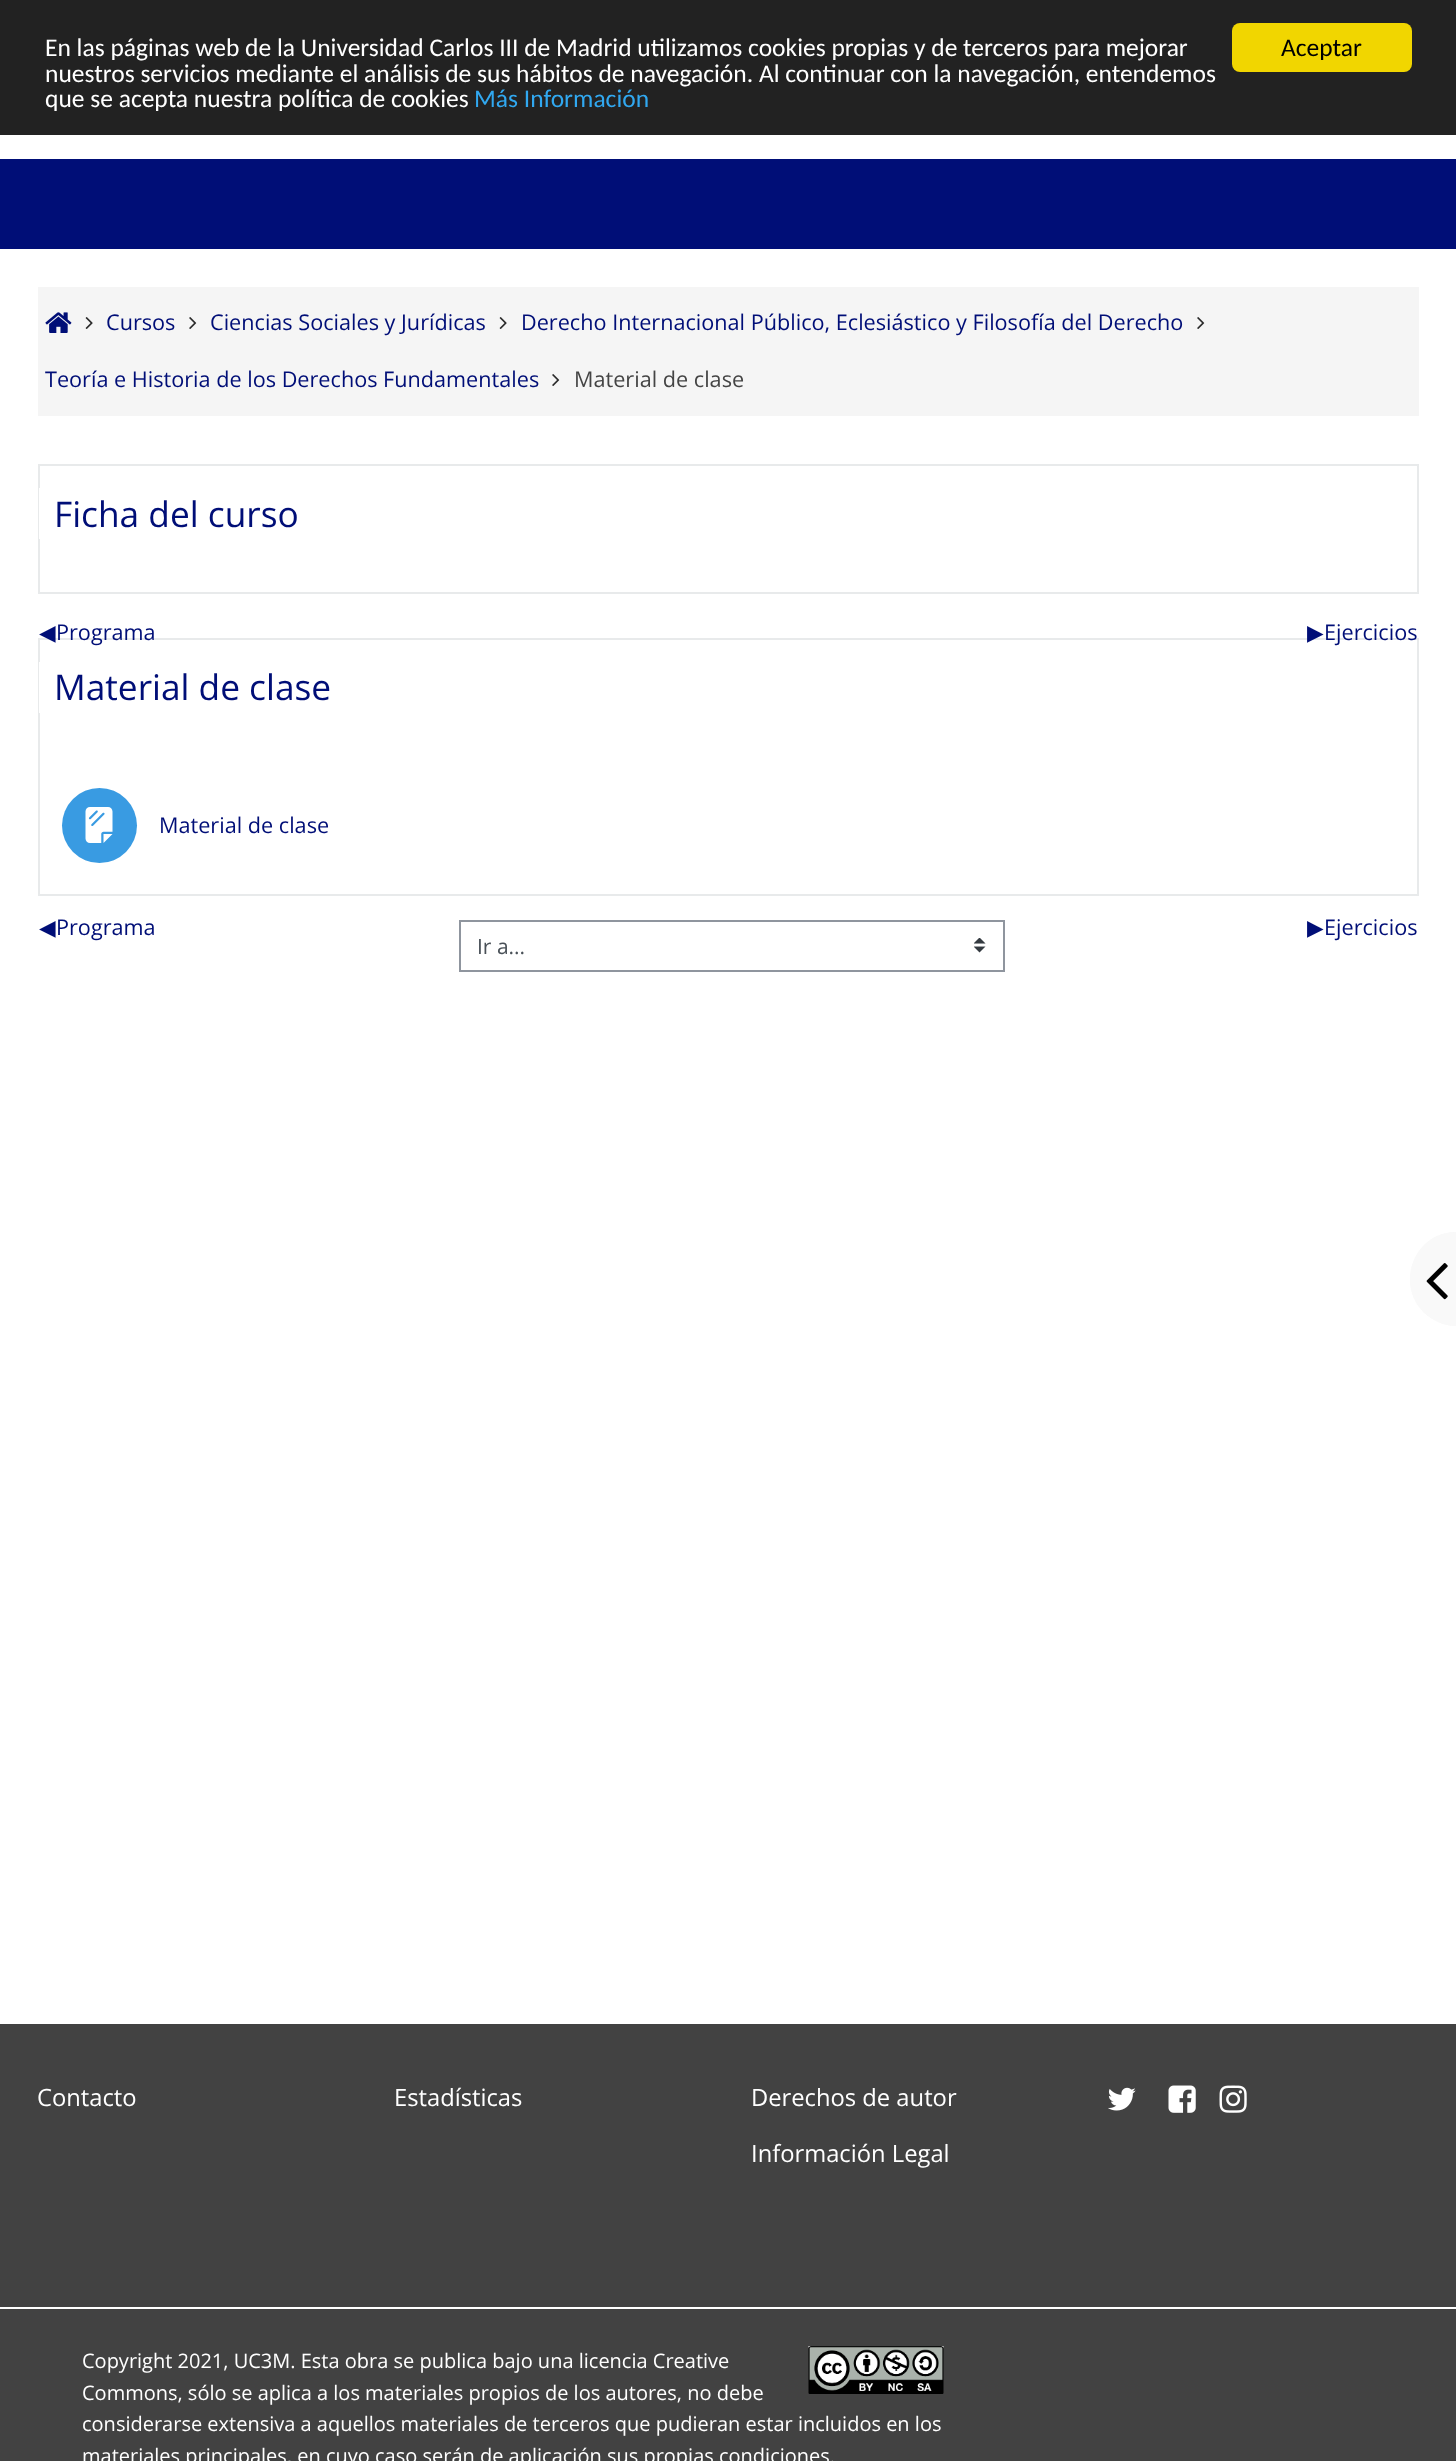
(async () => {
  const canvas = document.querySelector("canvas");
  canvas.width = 1456;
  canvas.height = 2461;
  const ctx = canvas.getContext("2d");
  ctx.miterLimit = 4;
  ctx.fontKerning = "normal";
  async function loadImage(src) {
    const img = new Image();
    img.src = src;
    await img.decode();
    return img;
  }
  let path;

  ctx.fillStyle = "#ffffff";
  ctx.fillRect(0, 0, 1456, 2461);
  ctx.fillStyle = "#222222";
  ctx.fillRect(0, 0, 1456, 135);
  ctx.fillStyle = "#f1d600";
  ctx.beginPath();
  ctx.roundRect(1232, 23, 180, 49, 8);
  ctx.fill();
  ctx.fillStyle = "#000e77";
  ctx.fillRect(0, 159, 1456, 90);
  ctx.fillStyle = "#f5f5f5";
  ctx.fillRect(38, 287, 1381, 129);
  ctx.drawImage(await loadImage("img/1.png"), 45, 312, 27, 21);
  ctx.drawImage(await loadImage("img/2.png"), 85, 317, 8, 12);
  ctx.drawImage(await loadImage("img/3.png"), 189, 317, 8, 12);
  ctx.drawImage(await loadImage("img/2.png"), 499, 317, 8, 12);
  ctx.drawImage(await loadImage("img/3.png"), 1197, 317, 8, 12);
  ctx.drawImage(await loadImage("img/3.png"), 552, 374, 8, 12);
  ctx.strokeStyle = "#e8eaeb";
  ctx.lineWidth = 2;
  ctx.strokeRect(39, 465, 1379, 128);
  ctx.fillStyle = "#ffffff";
  ctx.fillRect(39, 488, 1, 51);
  ctx.strokeRect(39, 639, 1379, 256);
  ctx.fillRect(39, 662, 1, 51);
  ctx.fillStyle = "#399be2";
  ctx.beginPath();
  ctx.arc(99.5, 825.5, 37.5, 0, Math.PI * 2);
  ctx.fill();
  ctx.drawImage(await loadImage("img/4.png"), 85, 807, 28, 36);
  ctx.drawImage(await loadImage("img/5.png"), 974, 938, 12, 15);
  ctx.strokeStyle = "#8f959e";
  ctx.strokeRect(460, 921, 544, 50);
  ctx.fillStyle = "#f9f9f9";
  path = new Path2D("M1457 1232V1326C1431 1326 1410 1305 1410 1279C1410 1253 1431 1232 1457 1232Z");
  ctx.fill(path);
  path = new Path2D("M1456 1232V1326C1447 1326 1438 1323 1431 1318C1393 1293 1410 1232 1456 1232ZM1456 1238V1320C1448 1320 1441 1318 1434 1313C1401 1291 1416 1238 1456 1238Z");
  ctx.fill(path, "evenodd");
  ctx.drawImage(await loadImage("img/6.png"), 1426, 1263, 22, 37);
  ctx.fillStyle = "#424242";
  ctx.fillRect(0, 2024, 1456, 437);
  ctx.drawImage(await loadImage("img/7.png"), 1108, 2087, 28, 24);
  ctx.drawImage(await loadImage("img/8.png"), 1168, 2085, 28, 28);
  ctx.drawImage(await loadImage("img/9.png"), 1219, 2085, 28, 28);
  ctx.fillStyle = "#ffffff";
  ctx.fillRect(0, 2307, 1456, 2);
  ctx.drawImage(await loadImage("img/10.png"), 808, 2346, 136, 48);
  ctx.font = "25.5px Carlito";
  for (const [text, x, y] of [
    ["En las páginas web de la Universidad Carlos III de Madrid utilizamos cookies propias y de terceros para mejorar", 45, 56],
    ["nuestros servicios mediante el análisis de sus hábitos de navegación. Al continuar con la navegación, entendemos", 45, 82],
    ["que se acepta nuestra política de cookies", 45, 107],
  ]) {
    ctx.fillText(text, x, y);
  }
  ctx.fillStyle = "#31a8f0";
  ctx.fillText("Más Información", 474, 107);
  ctx.fillStyle = "#000000";
  ctx.fillText("Aceptar", 1281, 56);
  ctx.font = "21.65px Open Sans";
  ctx.fillStyle = "#000e77";
  for (const [text, x, y] of [
    ["Cursos", 106, 330],
    ["Ciencias Sociales y Jurídicas", 210, 330],
    ["Derecho Internacional Público, Eclesiástico y Filosofía del Derecho", 521, 330],
    ["Teoría e Historia de los Derechos Fundamentales", 45, 387],
  ]) {
    ctx.fillText(text, x, y);
  }
  ctx.fillStyle = "#444444";
  ctx.fillText("Material de clase", 574, 387);
  ctx.font = "35.25px Open Sans";
  ctx.fillStyle = "#000e77";
  ctx.fillText("Ficha del curso", 54, 527);
  ctx.font = "21.65px DejaVu Sans";
  ctx.fillText("◀︎", 39, 640);
  ctx.font = "21.65px Open Sans";
  ctx.fillText("Programa", 56, 640);
  ctx.font = "21.65px DejaVu Sans";
  ctx.fillText("▶︎", 1307, 640);
  ctx.font = "21.65px Open Sans";
  ctx.fillText("Ejercicios", 1324, 640);
  ctx.font = "35.25px Open Sans";
  ctx.fillText("Material de clase", 54, 700);
  ctx.font = "21.65px Open Sans";
  ctx.fillText("Material de clase", 159, 833);
  ctx.font = "21.65px DejaVu Sans";
  ctx.fillText("◀︎", 39, 935);
  ctx.font = "21.65px Open Sans";
  ctx.fillText("Programa", 56, 935);
  ctx.font = "21.65px DejaVu Sans";
  ctx.fillText("▶︎", 1307, 935);
  ctx.font = "21.65px Open Sans";
  ctx.fillText("Ejercicios", 1324, 935);
  ctx.font = "21px Open Sans";
  ctx.fillStyle = "#495057";
  ctx.fillText("Ir a...", 477, 954);
  ctx.font = "23.75px Open Sans";
  ctx.fillStyle = "#ffffff";
  for (const [text, x, y] of [
    ["Contacto", 37, 2106],
    ["Estadísticas", 394, 2106],
    ["Derechos de autor", 751, 2106],
    ["Información Legal", 751, 2162],
  ]) {
    ctx.fillText(text, x, y);
  }
  ctx.font = "20px Open Sans";
  for (const [text, x, y] of [
    ["Copyright 2021, UC3M. Esta obra se publica bajo una licencia Creative", 82, 2368],
    ["Commons, sólo se aplica a los materiales propios de los autores, no debe", 82, 2400],
    ["considerarse extensiva a aquellos materiales de terceros que pudieran estar incluidos en los", 82, 2431],
    ["materiales principales, en cuyo caso serán de aplicación sus propias condiciones.", 82, 2463],
  ]) {
    ctx.fillText(text, x, y);
  }
})();
